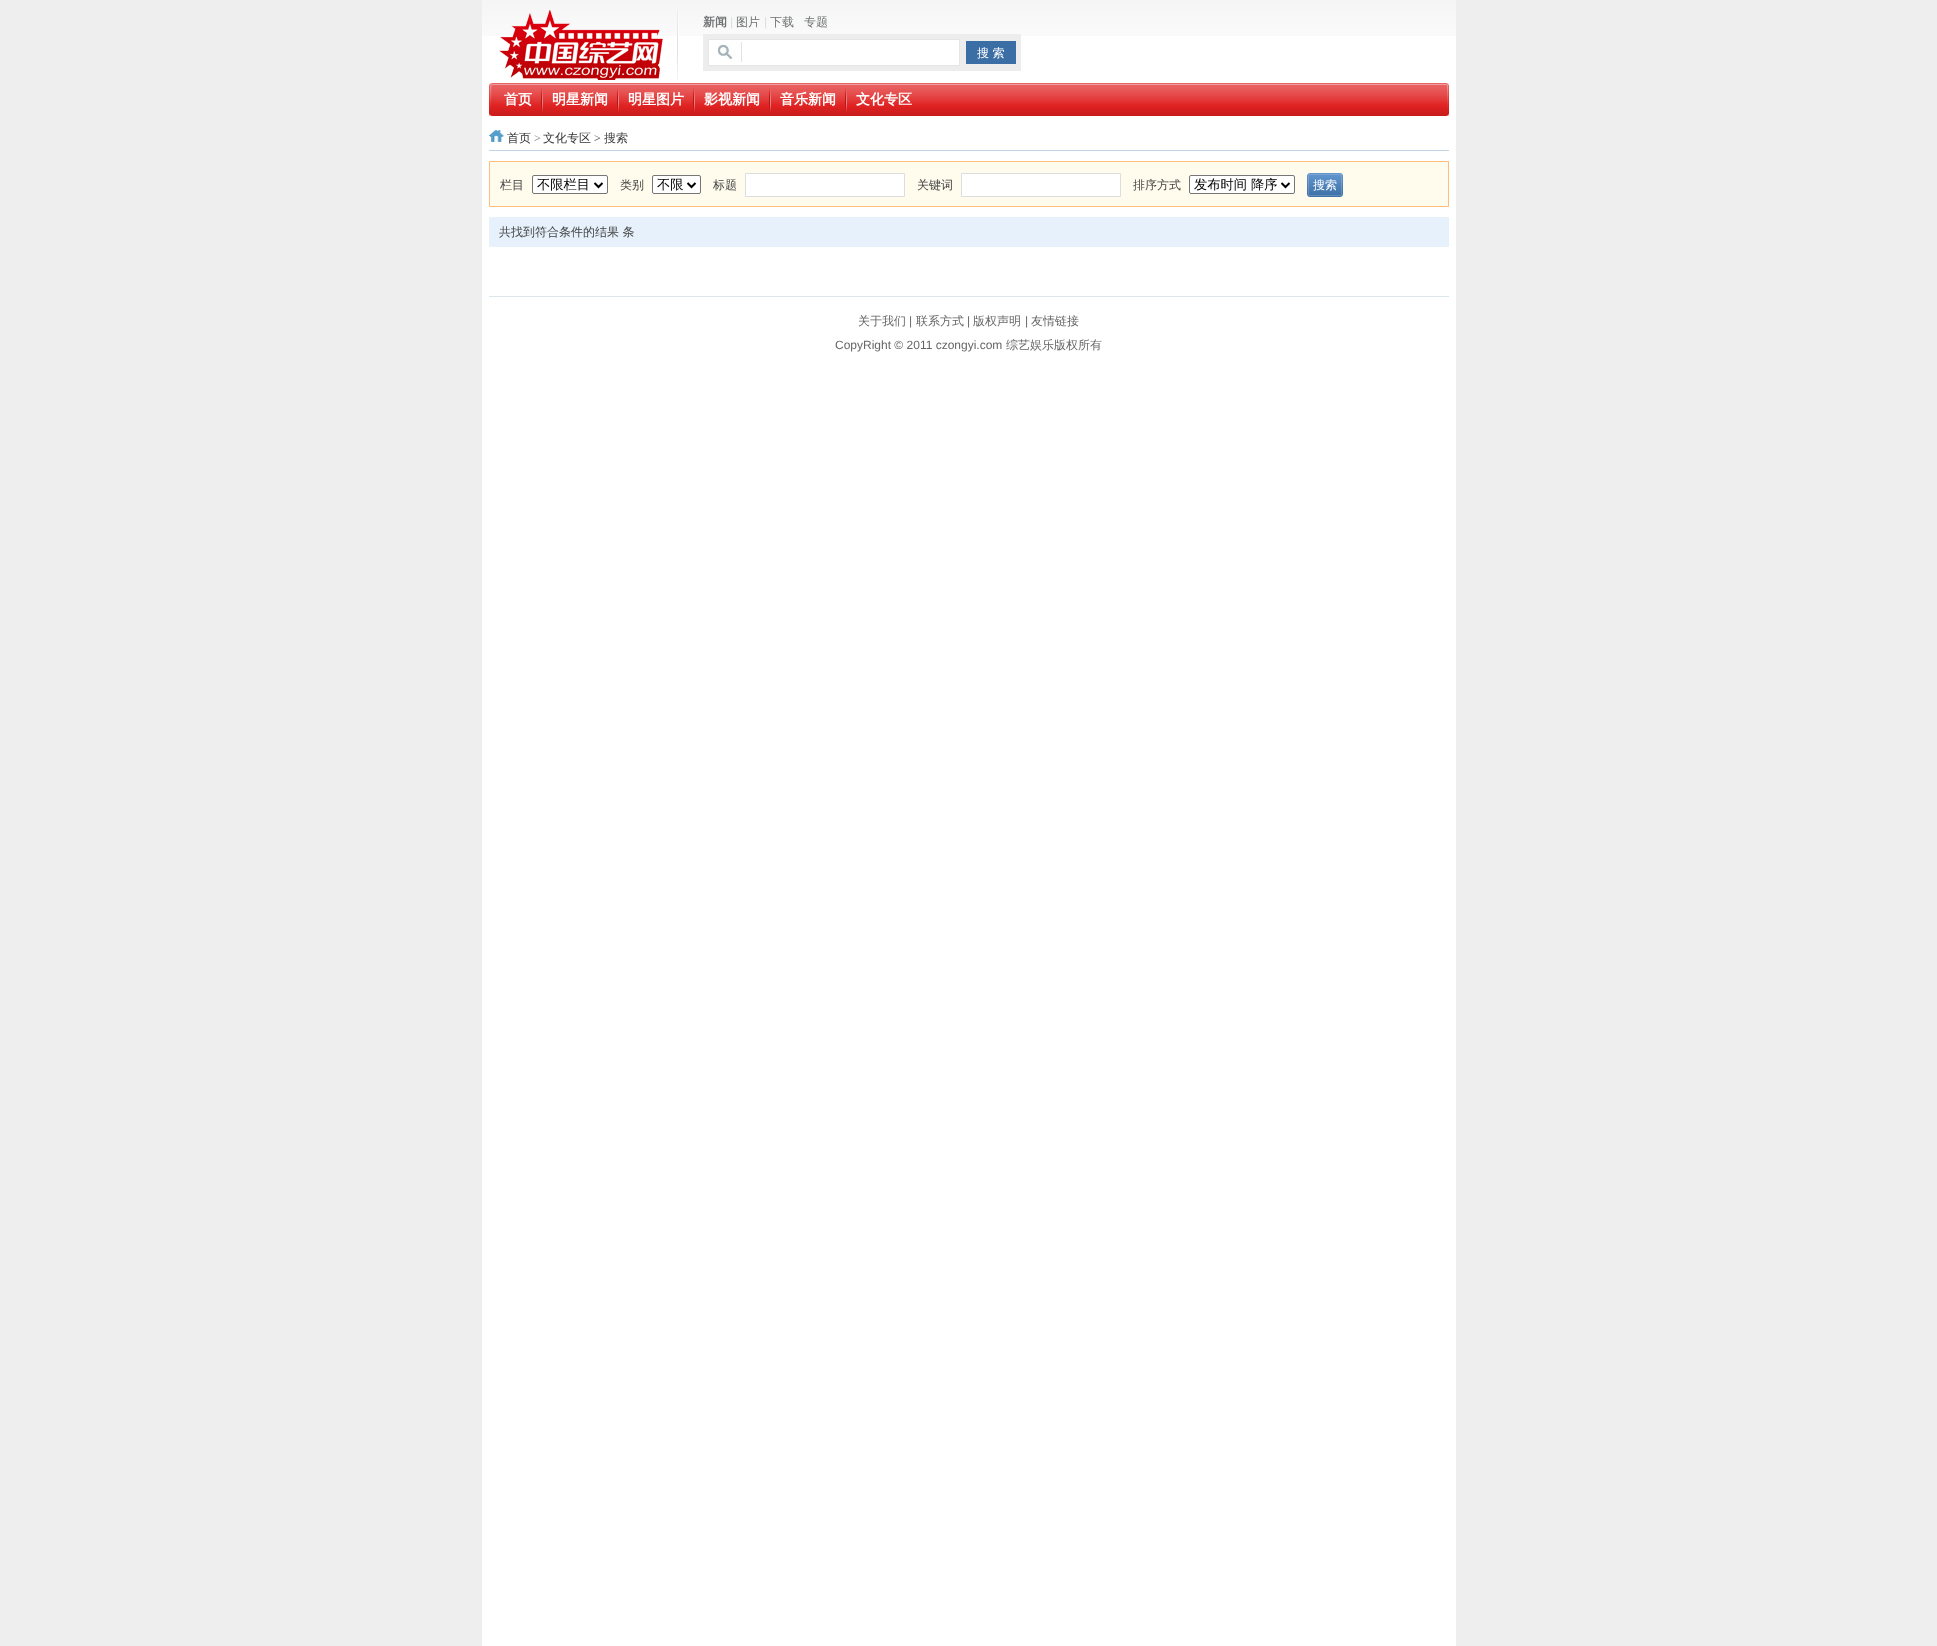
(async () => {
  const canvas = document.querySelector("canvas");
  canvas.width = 1937;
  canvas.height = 1646;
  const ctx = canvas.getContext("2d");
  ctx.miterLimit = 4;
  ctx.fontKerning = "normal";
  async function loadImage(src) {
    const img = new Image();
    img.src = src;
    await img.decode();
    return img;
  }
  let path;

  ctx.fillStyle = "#eeeeee";
  ctx.fillRect(0, 0, 1937, 1646);
  ctx.fillStyle = "#ffffff";
  ctx.fillRect(482, 36, 974, 1610);
  ctx.drawImage(await loadImage("img/1.png"), 482, 0, 974, 36);
  ctx.drawImage(await loadImage("img/2.png"), 677, 10, 2, 70);
  ctx.drawImage(await loadImage("img/3.png"), 499, 10, 164, 70);
  ctx.fillStyle = "#ededed";
  ctx.fillRect(703, 34, 318, 37);
  ctx.fillStyle = "#ffffff";
  ctx.fillRect(709, 40, 250, 25);
  ctx.drawImage(await loadImage("img/4.png"), 718, 42, 24, 20);
  ctx.strokeStyle = "#e5e5e7";
  ctx.strokeRect(708.5, 39.5, 251, 26);
  ctx.fillStyle = "#3a6ea5";
  ctx.fillRect(966, 41, 50, 23);
  ctx.drawImage(await loadImage("img/5.png"), 489, 83, 9, 33);
  ctx.drawImage(await loadImage("img/6.png"), 1441, 83, 8, 33);
  ctx.drawImage(await loadImage("img/7.png"), 498, 83, 943, 33);
  ctx.drawImage(await loadImage("img/8.png"), 541, 88, 2, 25);
  ctx.drawImage(await loadImage("img/8.png"), 617, 88, 2, 25);
  ctx.drawImage(await loadImage("img/8.png"), 693, 88, 2, 25);
  ctx.drawImage(await loadImage("img/8.png"), 769, 88, 2, 25);
  ctx.drawImage(await loadImage("img/8.png"), 845, 88, 2, 25);
  ctx.drawImage(await loadImage("img/9.png"), 489, 130, 15, 12);
  ctx.fillStyle = "#c3d4e7";
  ctx.fillRect(489, 150, 960, 1);
  ctx.fillStyle = "#fffced";
  ctx.beginPath();
  ctx.rect(489.5, 161.5, 959, 45);
  ctx.fill();
  ctx.strokeStyle = "#ffbf7a";
  ctx.stroke();
  ctx.fillStyle = "#ffffff";
  ctx.beginPath();
  ctx.roundRect(532.5, 175.5, 75, 18, 1.5);
  ctx.fill();
  ctx.strokeStyle = "#767676";
  ctx.stroke();
  path = new Path2D("M594.5 183L598.5 187L602.5 183");
  ctx.strokeStyle = "#000000";
  ctx.lineWidth = 2;
  ctx.stroke(path);
  ctx.beginPath();
  ctx.roundRect(652.5, 175.5, 48, 18, 1.5);
  ctx.fill();
  ctx.strokeStyle = "#767676";
  ctx.lineWidth = 1;
  ctx.stroke();
  path = new Path2D("M687.5 183L691.5 187L695.5 183");
  ctx.strokeStyle = "#000000";
  ctx.lineWidth = 2;
  ctx.stroke(path);
  ctx.beginPath();
  ctx.rect(745.5, 173.5, 159, 23);
  ctx.fill();
  ctx.strokeStyle = "#dcdddd";
  ctx.lineWidth = 1;
  ctx.stroke();
  ctx.beginPath();
  ctx.rect(961.5, 173.5, 159, 23);
  ctx.fill();
  ctx.stroke();
  ctx.beginPath();
  ctx.roundRect(1189.5, 175.5, 105, 18, 1.5);
  ctx.fill();
  ctx.strokeStyle = "#767676";
  ctx.stroke();
  path = new Path2D("M1281.5 183L1285.5 187L1289.5 183");
  ctx.strokeStyle = "#000000";
  ctx.lineWidth = 2;
  ctx.stroke(path);
  ctx.drawImage(await loadImage("img/10.png"), 1307, 173, 6, 24);
  ctx.drawImage(await loadImage("img/11.png"), 1313, 173, 30, 24);
  ctx.fillStyle = "#e6f1fb";
  ctx.fillRect(489, 217, 960, 30);
  ctx.fillStyle = "#dbe7ed";
  ctx.fillRect(489, 296, 960, 1);
  ctx.font = "bold 12px WenQuanYi Zen Hei";
  ctx.fillStyle = "#6f7172";
  ctx.fillText("新闻", 703, 26);
  ctx.font = "12px Liberation Sans";
  ctx.fillStyle = "#dddddd";
  ctx.fillText("|", 730, 26);
  ctx.font = "500 12px WenQuanYi Zen Hei";
  ctx.fillStyle = "#6f7172";
  ctx.fillText("图片", 736, 26);
  ctx.font = "12px Liberation Sans";
  ctx.fillStyle = "#dddddd";
  ctx.fillText("|", 764, 26);
  ctx.font = "500 12px WenQuanYi Zen Hei";
  ctx.fillStyle = "#6f7172";
  ctx.fillText("下载", 770, 26);
  ctx.fillText("专题", 804, 26);
  ctx.fillStyle = "#ffffff";
  ctx.fillText("搜 索", 977, 57);
  ctx.font = "bold 14px WenQuanYi Zen Hei";
  for (const [text, x, y] of [
    ["首页", 504, 104],
    ["明星新闻", 552, 104],
    ["明星图片", 628, 104],
    ["影视新闻", 704, 104],
    ["音乐新闻", 780, 104],
    ["文化专区", 856, 104],
  ]) {
    ctx.fillText(text, x, y);
  }
  ctx.font = "500 12px WenQuanYi Zen Hei";
  ctx.fillStyle = "#333333";
  ctx.fillText("首页", 507, 142);
  ctx.font = "12px Liberation Serif";
  ctx.fillStyle = "#7e7e7e";
  ctx.fillText(">", 534, 142);
  ctx.font = "500 12px WenQuanYi Zen Hei";
  ctx.fillStyle = "#333333";
  ctx.fillText("文化专区", 543, 142);
  ctx.font = "12px Liberation Serif";
  ctx.fillStyle = "#444444";
  ctx.fillText(">", 594, 142);
  ctx.font = "500 12px WenQuanYi Zen Hei";
  ctx.fillText("搜索", 604, 142);
  ctx.fillText("栏目", 500, 189);
  ctx.font = "500 13.25px WenQuanYi Zen Hei";
  ctx.fillStyle = "#000000";
  ctx.fillText("不限栏目", 537, 189);
  ctx.font = "500 12px WenQuanYi Zen Hei";
  ctx.fillStyle = "#444444";
  ctx.fillText("类别", 620, 189);
  ctx.font = "500 13.25px WenQuanYi Zen Hei";
  ctx.fillStyle = "#000000";
  ctx.fillText("不限", 657, 189);
  ctx.font = "500 12px WenQuanYi Zen Hei";
  ctx.fillStyle = "#444444";
  for (const [text, x, y] of [
    ["标题", 713, 189],
    ["关键词", 917, 189],
    ["排序方式", 1133, 189],
  ]) {
    ctx.fillText(text, x, y);
  }
  ctx.font = "500 13.25px WenQuanYi Zen Hei";
  ctx.fillStyle = "#000000";
  ctx.fillText("发布时间 降序", 1194, 189);
  ctx.save();
  ctx.beginPath();
  ctx.rect(1313, 173, 30, 24);
  ctx.clip();
  ctx.font = "500 12px WenQuanYi Zen Hei";
  ctx.fillStyle = "#ffffff";
  ctx.fillText("搜索", 1313, 189);
  ctx.restore();
  ctx.font = "500 12px WenQuanYi Zen Hei";
  ctx.fillStyle = "#444444";
  ctx.fillText("共找到符合条件的结果 条", 499, 236);
  ctx.fillStyle = "#666666";
  ctx.fillText("关于我们", 858, 325);
  ctx.font = "12px Liberation Sans";
  ctx.fillText("|", 909, 325);
  ctx.font = "500 12px WenQuanYi Zen Hei";
  ctx.fillText("联系方式", 916, 325);
  ctx.font = "12px Liberation Sans";
  ctx.fillText("|", 967, 325);
  ctx.font = "500 12px WenQuanYi Zen Hei";
  ctx.fillText("版权声明", 973, 325);
  ctx.font = "12px Liberation Sans";
  ctx.fillText("|", 1025, 325);
  ctx.font = "500 12px WenQuanYi Zen Hei";
  ctx.fillText("友情链接", 1031, 325);
  ctx.font = "12px Liberation Sans";
  ctx.fillText("CopyRight © 2011 czongyi.com", 835, 349);
  ctx.font = "500 12px WenQuanYi Zen Hei";
  ctx.fillText("综艺娱乐版权所有", 1006, 349);
})();
